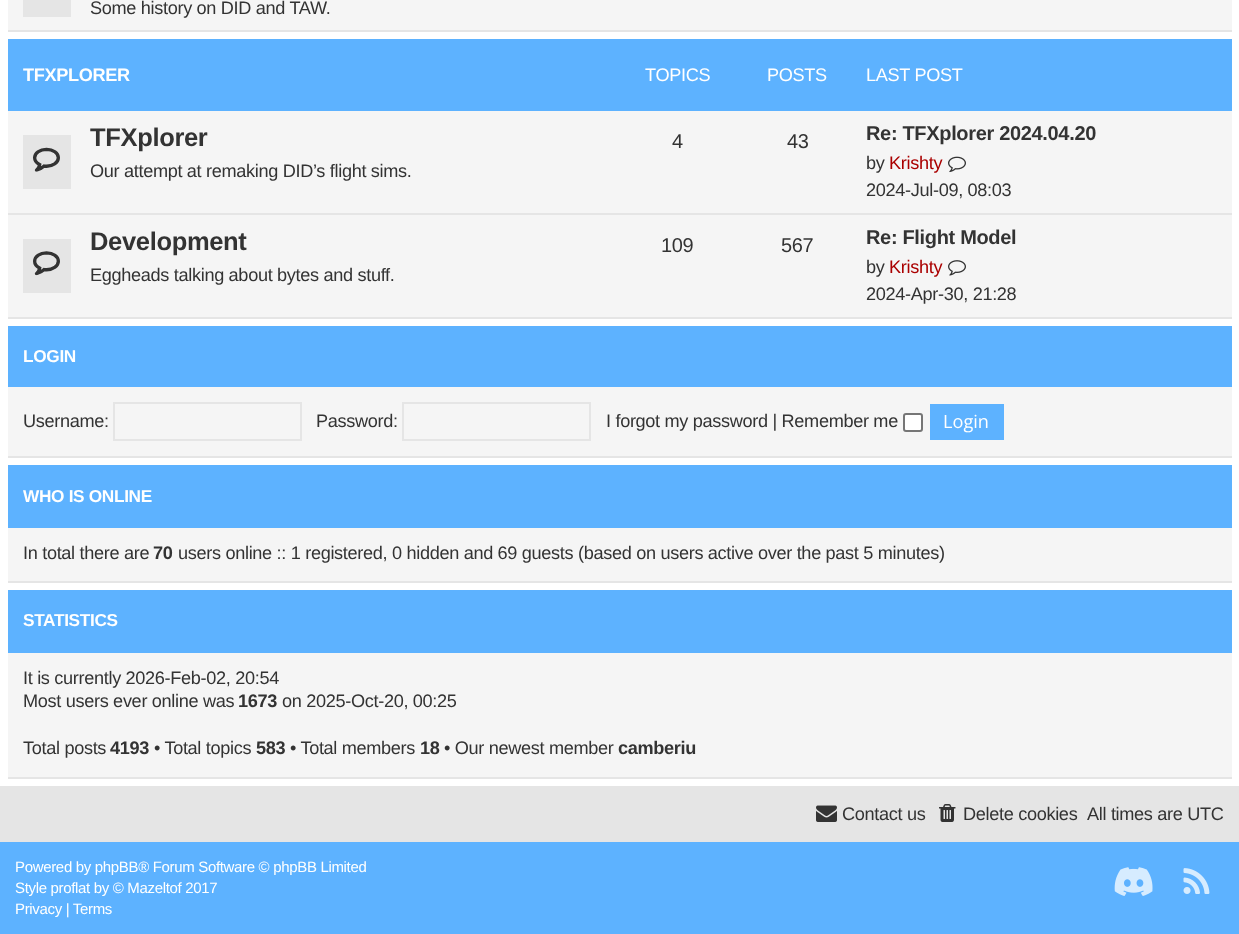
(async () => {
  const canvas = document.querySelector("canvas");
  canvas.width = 1239;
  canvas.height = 934;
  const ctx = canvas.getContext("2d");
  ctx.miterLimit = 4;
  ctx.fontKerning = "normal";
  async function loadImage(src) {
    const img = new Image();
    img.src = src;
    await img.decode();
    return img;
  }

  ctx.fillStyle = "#ffffff";
  ctx.fillRect(0, 0, 1239, 934);
  for (const [x, y, w, h, color] of [
    [8, 0, 1224, 30, "#f5f5f5"],
    [8, 30, 1224, 2, "#e5e5e5"],
    [23, 0, 48, 17, "#e5e5e5"],
    [8, 39, 1224, 72, "#5db2ff"],
    [8, 111, 1224, 206, "#f5f5f5"],
    [8, 213, 1224, 2, "#e5e5e5"],
    [23, 135, 48, 54, "#e5e5e5"],
  ]) {
    ctx.fillStyle = color;
    ctx.fillRect(x, y, w, h);
  }
  ctx.drawImage(await loadImage("img/1.png"), 33, 147, 27, 25);
  ctx.drawImage(await loadImage("img/2.png"), 948, 156, 18, 17);
  ctx.fillRect(8, 317, 1224, 2);
  ctx.fillRect(23, 239, 48, 54);
  ctx.drawImage(await loadImage("img/3.png"), 33, 251, 27, 25);
  ctx.drawImage(await loadImage("img/4.png"), 948, 260, 18, 16);
  for (const [x, y, w, h, color] of [
    [8, 326, 1224, 61, "#5db2ff"],
    [8, 387, 1224, 69, "#f5f5f5"],
    [8, 456, 1224, 2, "#e5e5e5"],
  ]) {
    ctx.fillStyle = color;
    ctx.fillRect(x, y, w, h);
  }
  ctx.strokeStyle = "#e5e5e5";
  ctx.lineWidth = 2;
  ctx.strokeRect(114, 403, 187, 37);
  ctx.strokeRect(403, 403, 187, 37);
  ctx.fillStyle = "#ffffff";
  ctx.beginPath();
  ctx.roundRect(904, 414, 18, 17, 2);
  ctx.fill();
  ctx.strokeStyle = "#767676";
  ctx.stroke();
  for (const [x, y, w, h, color] of [
    [930, 404, 74, 36, "#5db2ff"],
    [8, 465, 1224, 63, "#5db2ff"],
    [8, 528, 1224, 53, "#f5f5f5"],
    [8, 581, 1224, 2, "#e5e5e5"],
    [8, 590, 1224, 63, "#5db2ff"],
    [8, 653, 1224, 124, "#f5f5f5"],
    [8, 777, 1224, 2, "#e5e5e5"],
    [0, 786, 1239, 56, "#e5e5e5"],
  ]) {
    ctx.fillStyle = color;
    ctx.fillRect(x, y, w, h);
  }
  ctx.drawImage(await loadImage("img/5.png"), 816, 805, 21, 17);
  ctx.drawImage(await loadImage("img/6.png"), 939, 804, 17, 18);
  ctx.fillStyle = "#5db2ff";
  ctx.fillRect(0, 842, 1239, 92);
  ctx.drawImage(await loadImage("img/7.png"), 1114, 867, 39, 29);
  ctx.drawImage(await loadImage("img/8.png"), 1183, 868, 27, 26);
  ctx.letterSpacing = "-0.33px";
  ctx.font = "18.15px Liberation Sans";
  ctx.fillStyle = "#333333";
  ctx.fillText("Some history on DID and TAW.", 90, 14);
  ctx.font = "bold 18.15px Liberation Sans";
  ctx.fillStyle = "#ffffff";
  ctx.fillText("TFXPLORER", 23, 81);
  ctx.font = "18.15px Liberation Sans";
  for (const [text, x, y] of [
    ["TOPICS", 645, 81],
    ["POSTS", 767, 81],
    ["LAST POST", 866, 81],
  ]) {
    ctx.fillText(text, x, y);
  }
  ctx.font = "bold 25.5px Liberation Sans";
  ctx.fillStyle = "#333333";
  ctx.fillText("TFXplorer", 90, 146);
  ctx.font = "18.15px Liberation Sans";
  ctx.fillText("Our attempt at remaking DID’s flight sims.", 90, 177);
  ctx.font = "20px Liberation Sans";
  ctx.fillText("4", 672, 148);
  ctx.fillText("43", 787, 148);
  ctx.font = "bold 20px Liberation Sans";
  ctx.fillText("Re: TFXplorer 2024.04.20", 866, 140);
  ctx.font = "18.15px Liberation Sans";
  ctx.fillText("by", 866, 169);
  ctx.fillStyle = "#aa0000";
  ctx.fillText("Krishty", 889, 169);
  ctx.fillStyle = "#333333";
  ctx.fillText("2024-Jul-09, 08:03", 866, 196);
  ctx.font = "bold 25.5px Liberation Sans";
  ctx.fillText("Development", 90, 250);
  ctx.font = "18.15px Liberation Sans";
  ctx.fillText("Eggheads talking about bytes and stuff.", 90, 281);
  ctx.font = "20px Liberation Sans";
  ctx.fillText("109", 661, 252);
  ctx.fillText("567", 781, 252);
  ctx.font = "bold 20px Liberation Sans";
  ctx.fillText("Re: Flight Model", 866, 244);
  ctx.font = "18.15px Liberation Sans";
  ctx.fillText("by", 866, 273);
  ctx.fillStyle = "#aa0000";
  ctx.fillText("Krishty", 889, 273);
  ctx.fillStyle = "#333333";
  ctx.fillText("2024-Apr-30, 21:28", 866, 300);
  ctx.font = "bold 17.25px Liberation Sans";
  ctx.fillStyle = "#ffffff";
  ctx.fillText("LOGIN", 23, 362);
  ctx.font = "18.15px Liberation Sans";
  ctx.fillStyle = "#333333";
  for (const [text, x, y] of [
    ["Username:", 23, 427],
    ["Password:", 316, 427],
    ["I forgot my password | Remember me", 606, 427],
  ]) {
    ctx.fillText(text, x, y);
  }
  ctx.letterSpacing = "0px";
  ctx.font = "18.15px Open Sans";
  ctx.fillStyle = "#ffffff";
  ctx.fillText("Login", 943, 428);
  ctx.letterSpacing = "-0.33px";
  ctx.font = "bold 17.25px Liberation Sans";
  ctx.fillText("WHO IS ONLINE", 23, 502);
  ctx.font = "18.15px Liberation Sans";
  ctx.fillStyle = "#333333";
  ctx.fillText("In total there are", 23, 559);
  ctx.font = "bold 18.15px Liberation Sans";
  ctx.fillText("70", 153, 559);
  ctx.font = "18.15px Liberation Sans";
  ctx.fillText("users online :: 1 registered, 0 hidden and 69 guests (based on users active over the past 5 minutes)", 178, 559);
  ctx.font = "bold 17.25px Liberation Sans";
  ctx.fillStyle = "#ffffff";
  ctx.fillText("STATISTICS", 23, 626);
  ctx.font = "18.15px Liberation Sans";
  ctx.fillStyle = "#333333";
  ctx.fillText("It is currently 2026-Feb-02, 20:54", 23, 684);
  ctx.fillText("Most users ever online was", 23, 707);
  ctx.font = "bold 18.15px Liberation Sans";
  ctx.fillText("1673", 238, 707);
  ctx.font = "18.15px Liberation Sans";
  ctx.fillText("on 2025-Oct-20, 00:25", 282, 707);
  ctx.fillText("Total posts", 23, 754);
  ctx.font = "bold 18.15px Liberation Sans";
  ctx.fillText("4193", 110, 754);
  ctx.font = "18.15px Liberation Sans";
  ctx.fillText("• Total topics", 154, 754);
  ctx.font = "bold 18.15px Liberation Sans";
  ctx.fillText("583", 256, 754);
  ctx.font = "18.15px Liberation Sans";
  ctx.fillText("• Total members", 290, 754);
  ctx.font = "bold 18.15px Liberation Sans";
  ctx.fillText("18", 420, 754);
  ctx.font = "18.15px Liberation Sans";
  ctx.fillText("• Our newest member", 444, 754);
  ctx.font = "bold 18.15px Liberation Sans";
  ctx.fillText("camberiu", 618, 754);
  ctx.font = "18.15px Liberation Sans";
  for (const [text, x, y] of [
    ["Contact us", 842, 820],
    ["Delete cookies", 963, 820],
    ["All times are UTC", 1087, 820],
  ]) {
    ctx.fillText(text, x, y);
  }
  ctx.font = "15px Liberation Sans";
  ctx.fillStyle = "#ffffff";
  for (const [text, x, y] of [
    ["Powered by phpBB® Forum Software © phpBB Limited", 15, 872],
    ["Style proflat by © Mazeltof 2017", 15, 893],
    ["Privacy | Terms", 15, 914],
  ]) {
    ctx.fillText(text, x, y);
  }
})();
